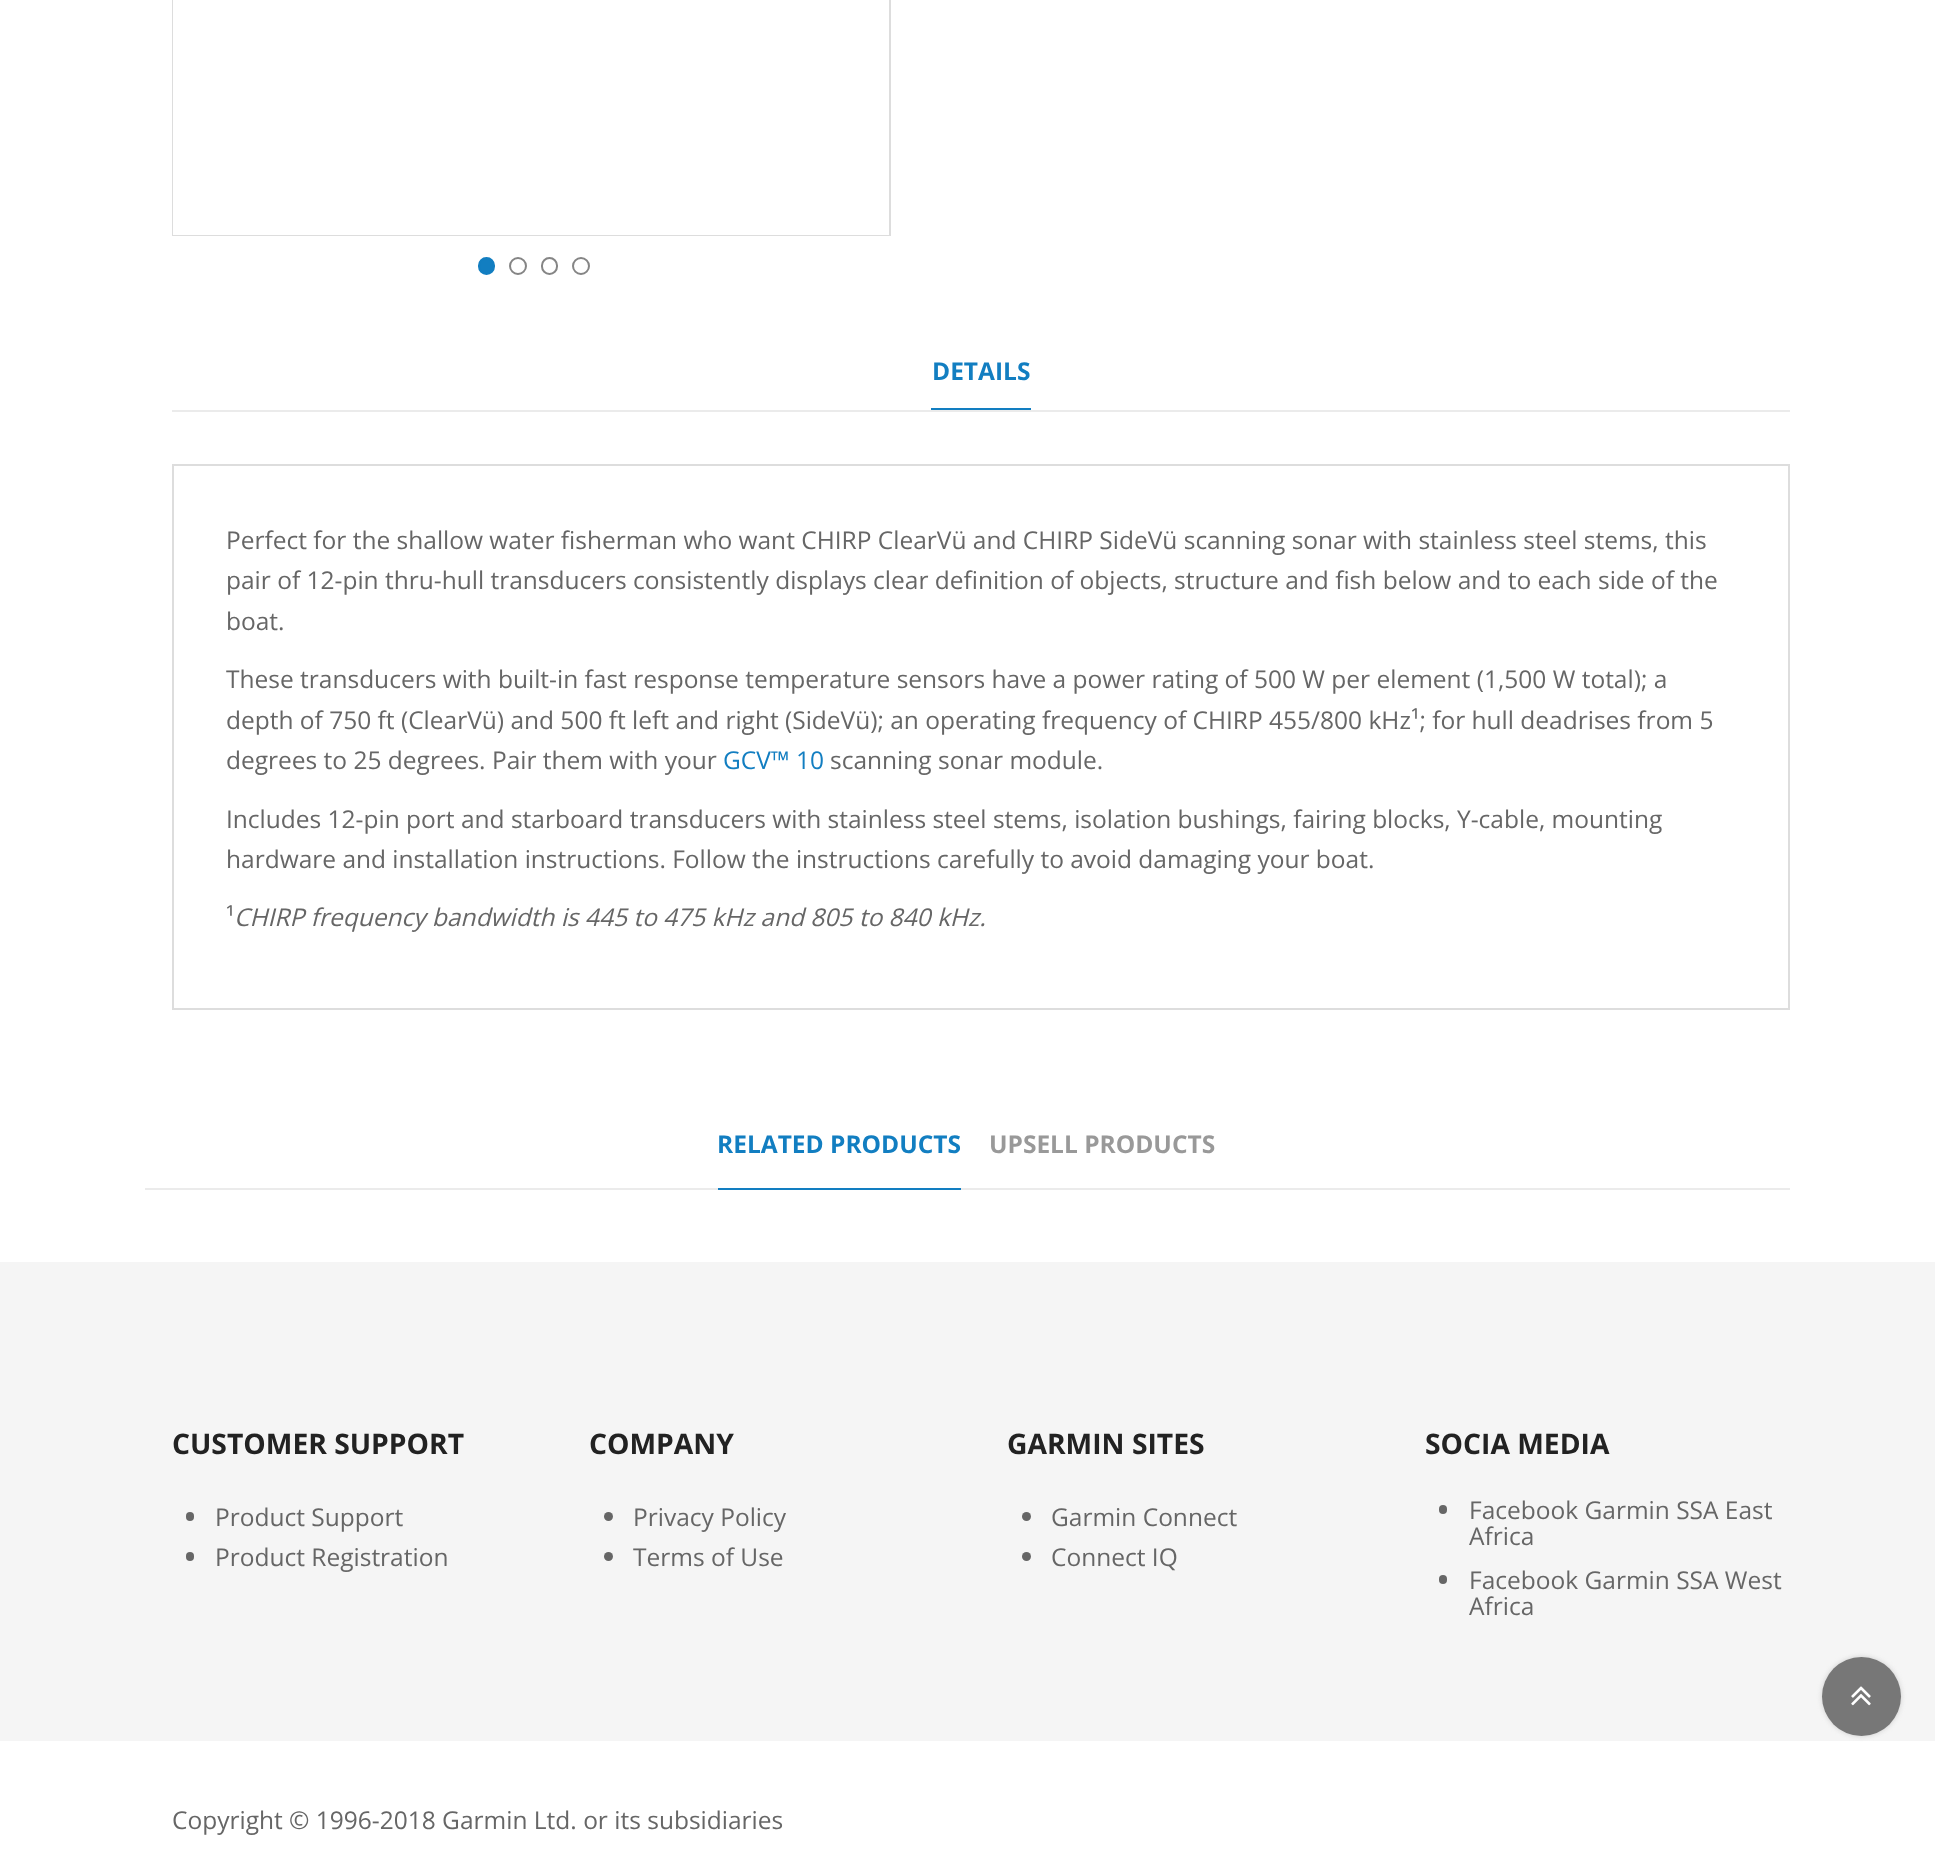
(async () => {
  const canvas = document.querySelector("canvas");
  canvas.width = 1935;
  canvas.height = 1876;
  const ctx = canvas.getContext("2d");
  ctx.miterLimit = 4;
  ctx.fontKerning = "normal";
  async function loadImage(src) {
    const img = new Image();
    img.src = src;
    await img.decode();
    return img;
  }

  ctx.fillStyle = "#ffffff";
  ctx.fillRect(0, 0, 1935, 1876);
  ctx.strokeStyle = "#dddddd";
  ctx.lineWidth = 2;
  ctx.strokeRect(173, -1, 717, 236);
  ctx.fillRect(173, 0, 716, 235);
  ctx.fillStyle = "#127ec1";
  ctx.beginPath();
  ctx.roundRect(479, 258, 15, 16, 7.5);
  ctx.fill();
  ctx.strokeStyle = "#127ec1";
  ctx.stroke();
  ctx.beginPath();
  ctx.arc(518, 266, 8, 0, Math.PI * 2);
  ctx.strokeStyle = "#858585";
  ctx.stroke();
  ctx.beginPath();
  ctx.roundRect(542, 258, 15, 16, 7.5);
  ctx.stroke();
  ctx.beginPath();
  ctx.arc(581, 266, 8, 0, Math.PI * 2);
  ctx.stroke();
  ctx.fillStyle = "#ebebeb";
  ctx.fillRect(172, 410, 1618, 2);
  ctx.fillStyle = "#127ec1";
  ctx.fillRect(931, 408, 100, 2);
  ctx.strokeStyle = "#dddddd";
  ctx.strokeRect(173, 465, 1616, 544);
  ctx.fillStyle = "#ebebeb";
  ctx.fillRect(145, 1188, 1645, 2);
  ctx.fillStyle = "#ffffff";
  ctx.beginPath();
  ctx.roundRect(718, 1127, 243, 63, [7, 7, 0, 0]);
  ctx.fill();
  ctx.fillStyle = "#127ec1";
  ctx.fillRect(718, 1188, 243, 2);
  ctx.fillStyle = "#f5f5f5";
  ctx.fillRect(0, 1262, 1935, 479);
  ctx.fillStyle = "#666666";
  ctx.beginPath();
  ctx.roundRect(186, 1512, 8, 9, 4);
  ctx.fill();
  ctx.beginPath();
  ctx.roundRect(186, 1552, 8, 9, 4);
  ctx.fill();
  ctx.beginPath();
  ctx.arc(608.5, 1516.5, 4.5, 0, Math.PI * 2);
  ctx.fill();
  ctx.beginPath();
  ctx.arc(608.5, 1556.5, 4.5, 0, Math.PI * 2);
  ctx.fill();
  ctx.beginPath();
  ctx.arc(1026.5, 1516.5, 4.5, 0, Math.PI * 2);
  ctx.fill();
  ctx.beginPath();
  ctx.arc(1026.5, 1556.5, 4.5, 0, Math.PI * 2);
  ctx.fill();
  ctx.beginPath();
  ctx.roundRect(1439, 1505, 8, 9, 4);
  ctx.fill();
  ctx.beginPath();
  ctx.roundRect(1439, 1575, 8, 9, 4);
  ctx.fill();
  ctx.fillStyle = "#cccccc";
  ctx.filter = "blur(2.5px)";
  ctx.beginPath();
  ctx.roundRect(1822, 1657, 79, 79, 39.5);
  ctx.fill();
  ctx.filter = "none";
  ctx.fillStyle = "#777777";
  ctx.beginPath();
  ctx.arc(1861.5, 1696.5, 39.5, 0, Math.PI * 2);
  ctx.fill();
  ctx.drawImage(await loadImage("img/1.png"), 1851, 1686, 20, 20);
  ctx.font = "bold 24.5px Open Sans";
  ctx.fillStyle = "#127ec1";
  ctx.fillText("DETAILS", 932, 380);
  ctx.font = "24.5px Open Sans";
  ctx.fillStyle = "#666666";
  for (const [text, x, y] of [
    ["Perfect for the shallow water fisherman who want CHIRP ClearVü and CHIRP SideVü scanning sonar with stainless steel stems, this", 226, 549],
    ["pair of 12-pin thru-hull transducers consistently displays clear definition of objects, structure and fish below and to each side of the", 226, 589],
    ["boat.", 226, 630],
    ["These transducers with built-in fast response temperature sensors have a power rating of 500 W per element (1,500 W total); a", 226, 688],
    ["depth of 750 ft (ClearVü) and 500 ft left and right (SideVü); an operating frequency of CHIRP 455/800 kHz¹; for hull deadrises from 5", 226, 729],
    ["degrees to 25 degrees. Pair them with your", 226, 769],
  ]) {
    ctx.fillText(text, x, y);
  }
  ctx.fillStyle = "#127ec1";
  ctx.fillText("GCV™ 10", 723, 769);
  ctx.fillStyle = "#666666";
  for (const [text, x, y] of [
    ["scanning sonar module.", 830, 769],
    ["Includes 12-pin port and starboard transducers with stainless steel stems, isolation bushings, fairing blocks, Y-cable, mounting", 226, 828],
    ["hardware and installation instructions. Follow the instructions carefully to avoid damaging your boat.", 226, 868],
    ["¹", 226, 926],
  ]) {
    ctx.fillText(text, x, y);
  }
  ctx.font = "italic 24.5px Open Sans";
  ctx.fillText("CHIRP frequency bandwidth is 445 to 475 kHz and 805 to 840 kHz.", 234, 926);
  ctx.font = "bold 24.5px Open Sans";
  ctx.fillStyle = "#127ec1";
  ctx.fillText("RELATED PRODUCTS", 717, 1153);
  ctx.fillStyle = "#999999";
  ctx.fillText("UPSELL PRODUCTS", 989, 1153);
  ctx.font = "bold 28.25px Open Sans";
  ctx.fillStyle = "#222222";
  ctx.fillText("CUSTOMER SUPPORT", 172, 1454);
  ctx.font = "24.5px Open Sans";
  ctx.fillStyle = "#666666";
  ctx.fillText("Product Support", 215, 1526);
  ctx.fillText("Product Registration", 215, 1566);
  ctx.font = "bold 28.25px Open Sans";
  ctx.fillStyle = "#222222";
  ctx.fillText("COMPANY", 589, 1454);
  ctx.font = "24.5px Open Sans";
  ctx.fillStyle = "#666666";
  ctx.fillText("Privacy Policy", 633, 1526);
  ctx.fillText("Terms of Use", 633, 1566);
  ctx.font = "bold 28.25px Open Sans";
  ctx.fillStyle = "#222222";
  ctx.fillText("GARMIN SITES", 1007, 1454);
  ctx.font = "24.5px Open Sans";
  ctx.fillStyle = "#666666";
  ctx.fillText("Garmin Connect", 1051, 1526);
  ctx.fillText("Connect IQ", 1051, 1566);
  ctx.font = "bold 28.25px Open Sans";
  ctx.fillStyle = "#222222";
  ctx.fillText("SOCIA MEDIA", 1425, 1454);
  ctx.font = "24.5px Open Sans";
  ctx.fillStyle = "#666666";
  for (const [text, x, y] of [
    ["Facebook Garmin SSA East", 1469, 1519],
    ["Africa", 1469, 1545],
    ["Facebook Garmin SSA West", 1469, 1589],
    ["Africa", 1469, 1615],
    ["Copyright © 1996-2018 Garmin Ltd. or its subsidiaries", 172, 1829],
  ]) {
    ctx.fillText(text, x, y);
  }
})();
